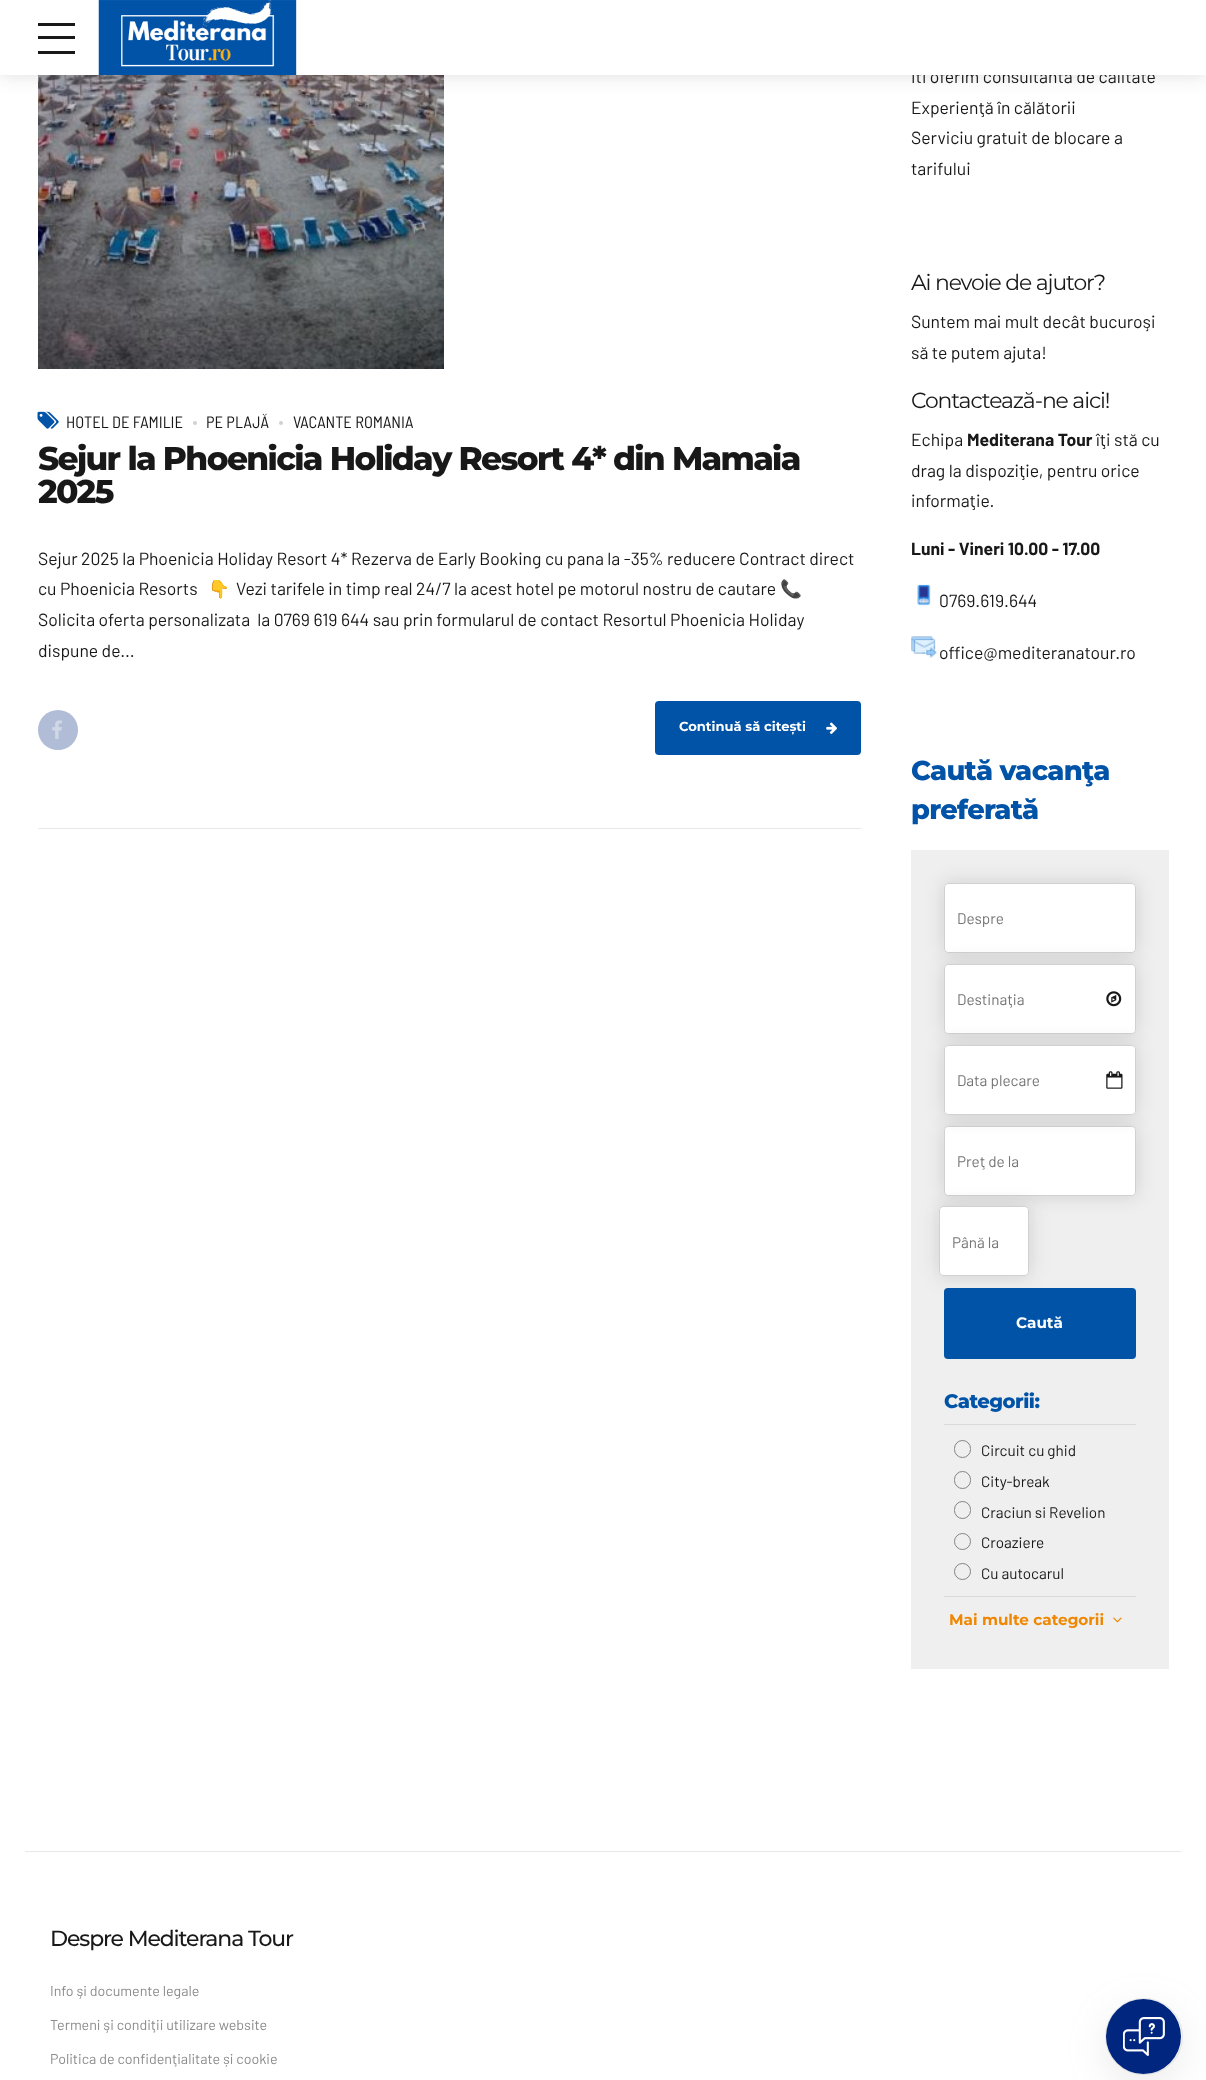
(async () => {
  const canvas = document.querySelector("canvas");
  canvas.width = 1206;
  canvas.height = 2080;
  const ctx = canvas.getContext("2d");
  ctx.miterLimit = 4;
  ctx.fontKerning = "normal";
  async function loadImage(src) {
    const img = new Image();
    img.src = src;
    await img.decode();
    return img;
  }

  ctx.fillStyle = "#ffffff";
  ctx.fillRect(0, 0, 1206, 2080);
  ctx.drawImage(await loadImage("img/2.png"), 38, 75, 406, 294);
  ctx.fillStyle = "rgba(24, 24, 24, 0.15)";
  ctx.filter = "blur(9.5px)";
  ctx.beginPath();
  ctx.rect(0, 0, 1206, 75);
  ctx.fill();
  ctx.filter = "none";
  ctx.fillStyle = "#e8e8e8";
  ctx.fillRect(38, 828, 823, 1);
  ctx.drawImage(await loadImage("img/3.png"), 37, 411, 22, 18);
  ctx.fillStyle = "#d1d1d1";
  ctx.beginPath();
  ctx.arc(195, 423, 2, 0, Math.PI * 2);
  ctx.fill();
  ctx.beginPath();
  ctx.arc(281, 423, 2, 0, Math.PI * 2);
  ctx.fill();
  ctx.fillStyle = "#b1bdd6";
  ctx.beginPath();
  ctx.arc(58, 730, 20, 0, Math.PI * 2);
  ctx.fill();
  ctx.drawImage(await loadImage("img/4.png"), 52, 720, 10, 19);
  ctx.fillStyle = "#0153a7";
  ctx.beginPath();
  ctx.roundRect(655, 701, 206, 54, 4);
  ctx.fill();
  ctx.drawImage(await loadImage("img/5.png"), 826, 722, 11, 12);
  ctx.drawImage(await loadImage("img/6.png"), 917, 584, 14, 22);
  ctx.drawImage(await loadImage("img/7.png"), 911, 636, 26, 22);
  ctx.fillStyle = "#efefef";
  ctx.fillRect(911, 850, 258, 819);
  ctx.fillStyle = "rgba(24, 24, 24, 0.15)";
  ctx.filter = "blur(9.5px)";
  ctx.beginPath();
  ctx.roundRect(944, 883, 192, 70, 4);
  ctx.fill();
  ctx.filter = "none";
  ctx.fillStyle = "#ffffff";
  ctx.beginPath();
  ctx.roundRect(944, 883, 192, 70, 4);
  ctx.fill();
  ctx.beginPath();
  ctx.roundRect(944.5, 883.5, 191, 69, 3.5);
  ctx.strokeStyle = "rgba(24, 24, 24, 0.2)";
  ctx.stroke();
  ctx.fillStyle = "rgba(24, 24, 24, 0.15)";
  ctx.filter = "blur(9.5px)";
  ctx.beginPath();
  ctx.roundRect(944, 964, 192, 70, 4);
  ctx.fill();
  ctx.filter = "none";
  ctx.fillStyle = "#ffffff";
  ctx.beginPath();
  ctx.roundRect(944, 964, 192, 70, 4);
  ctx.fill();
  ctx.beginPath();
  ctx.roundRect(944.5, 964.5, 191, 69, 3.5);
  ctx.stroke();
  ctx.drawImage(await loadImage("img/8.png"), 1106, 991, 16, 16);
  ctx.fillStyle = "rgba(24, 24, 24, 0.15)";
  ctx.filter = "blur(9.5px)";
  ctx.beginPath();
  ctx.roundRect(944, 1126, 192, 70, 4);
  ctx.fill();
  ctx.filter = "none";
  ctx.fillStyle = "#ffffff";
  ctx.beginPath();
  ctx.roundRect(944, 1126, 192, 70, 4);
  ctx.fill();
  ctx.beginPath();
  ctx.roundRect(944.5, 1126.5, 191, 69, 3.5);
  ctx.stroke();
  ctx.fillStyle = "rgba(24, 24, 24, 0.15)";
  ctx.filter = "blur(9.5px)";
  ctx.beginPath();
  ctx.roundRect(944, 1045, 192, 70, 4);
  ctx.fill();
  ctx.filter = "none";
  ctx.fillStyle = "#ffffff";
  ctx.beginPath();
  ctx.roundRect(944, 1045, 192, 70, 4);
  ctx.fill();
  ctx.beginPath();
  ctx.roundRect(944.5, 1045.5, 191, 69, 3.5);
  ctx.stroke();
  ctx.drawImage(await loadImage("img/9.png"), 1106, 1071, 17, 18);
  ctx.fillStyle = "rgba(24, 24, 24, 0.15)";
  ctx.filter = "blur(9.5px)";
  ctx.beginPath();
  ctx.roundRect(939, 1206, 90, 70, 4);
  ctx.fill();
  ctx.filter = "none";
  ctx.fillStyle = "#ffffff";
  ctx.beginPath();
  ctx.roundRect(939, 1206, 90, 70, 4);
  ctx.fill();
  ctx.beginPath();
  ctx.roundRect(939.5, 1206.5, 89, 69, 3.5);
  ctx.stroke();
  ctx.fillStyle = "#0153a7";
  ctx.beginPath();
  ctx.roundRect(944, 1288, 192, 71, 4);
  ctx.fill();
  ctx.fillStyle = "#d9d9d9";
  ctx.fillRect(944, 1424, 192, 1);
  ctx.beginPath();
  ctx.roundRect(954.5, 1440.5, 16, 17, 8);
  ctx.strokeStyle = "#848484";
  ctx.stroke();
  ctx.beginPath();
  ctx.roundRect(954.5, 1471.5, 16, 17, 8);
  ctx.stroke();
  ctx.beginPath();
  ctx.roundRect(954.5, 1501.5, 16, 17, 8);
  ctx.stroke();
  ctx.beginPath();
  ctx.arc(962.5, 1541.5, 8, 0, Math.PI * 2);
  ctx.stroke();
  ctx.beginPath();
  ctx.arc(962.5, 1571.5, 8, 0, Math.PI * 2);
  ctx.stroke();
  ctx.fillRect(944, 1596, 192, 1);
  ctx.drawImage(await loadImage("img/10.png"), 1113, 1617, 9, 6);
  ctx.fillStyle = "#e8e8e8";
  ctx.fillRect(25, 1851, 1156, 1);
  ctx.beginPath();
  ctx.roundRect(1105.5, 1998.5, 77, 76, 38);
  ctx.strokeStyle = "#eaeaea";
  ctx.stroke();
  ctx.fillStyle = "rgba(150, 150, 150, 0.2)";
  ctx.filter = "blur(19px)";
  ctx.beginPath();
  ctx.roundRect(1106, 2011, 75, 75, 37.5);
  ctx.fill();
  ctx.filter = "none";
  ctx.fillStyle = "#002680";
  ctx.beginPath();
  ctx.arc(1143.5, 2036.5, 37.5, 0, Math.PI * 2);
  ctx.fill();
  ctx.drawImage(await loadImage("img/11.png"), 1123, 2017, 42, 39);
  ctx.font = "16.5px Barlow Semi Condensed";
  ctx.fillStyle = "#181818";
  for (const [text, x, y] of [
    ["HOTEL DE FAMILIE", 66, 428],
    ["PE PLAJĂ", 206, 428],
    ["VACANTE ROMANIA", 293, 428],
  ]) {
    ctx.fillText(text, x, y);
  }
  ctx.letterSpacing = "-1.65px";
  ctx.font = "800 32.8px Montserrat";
  ctx.fillText("Sejur la Phoenicia Holiday Resort 4* din Mamaia", 38, 470);
  ctx.fillText("2025", 38, 503);
  ctx.letterSpacing = "0px";
  ctx.font = "17.5px Barlow";
  ctx.fillText("Sejur 2025 la Phoenicia Holiday Resort 4* Rezerva de Early Booking cu pana la -35% reducere Contract direct", 38, 565);
  ctx.fillText("cu Phoenicia Resorts", 38, 595);
  ctx.font = "17.5px Noto Color Emoji";
  ctx.fillText("👇", 208, 595);
  ctx.font = "17.5px Barlow";
  ctx.fillText("Vezi tarifele in timp real 24/7 la acest hotel pe motorul nostru de cautare", 236, 595);
  ctx.font = "17.5px Noto Color Emoji";
  ctx.fillText("📞", 780, 595);
  ctx.font = "17.5px Barlow";
  ctx.fillText("Solicita oferta personalizata  la 0769 619 644 sau prin formularul de contact Resortul Phoenicia Holiday", 38, 626);
  ctx.fillText("dispune de...", 38, 657);
  ctx.font = "bold 13.1px Montserrat";
  ctx.fillStyle = "#ffffff";
  ctx.fillText("Continuă să citești", 679, 731);
  ctx.font = "17.5px Barlow";
  ctx.fillStyle = "#181818";
  ctx.fillText("Iti oferim consultanta de calitate", 911, 83);
  ctx.fillStyle = "#ffffff";
  ctx.fillRect(0, 0, 1206, 75);
  ctx.drawImage(await loadImage("img/1.png"), 98, 0, 199, 75);
  for (const [x, y, w, h, color] of [
    [38, 51, 37, 3, "#181818"],
    [38, 36, 37, 3, "#181818"],
    [38, 23, 37, 3, "#181818"],
  ]) {
    ctx.fillStyle = color;
    ctx.fillRect(x, y, w, h);
  }
  for (const [text, x, y] of [
    ["Experienţă în călătorii", 911, 114],
    ["Serviciu gratuit de blocare a", 911, 144],
    ["tarifului", 911, 175],
  ]) {
    ctx.fillText(text, x, y);
  }
  ctx.letterSpacing = "-1.1px";
  ctx.font = "21.9px Montserrat";
  ctx.fillText("Ai nevoie de ajutor?", 911, 290);
  ctx.letterSpacing = "0px";
  ctx.font = "17.5px Barlow";
  ctx.fillText("Suntem mai mult decât bucuroşi", 911, 328);
  ctx.fillText("să te putem ajuta!", 911, 359);
  ctx.letterSpacing = "-1.1px";
  ctx.font = "21.9px Montserrat";
  ctx.fillText("Contactează-ne aici!", 911, 408);
  ctx.letterSpacing = "0px";
  ctx.font = "17.5px Barlow";
  ctx.fillText("Echipa", 911, 446);
  ctx.font = "bold 17.5px Barlow";
  ctx.fillText("Mediterana Tour", 967, 446);
  ctx.font = "17.5px Barlow";
  for (const [text, x, y] of [
    ["îţi stă cu", 1096, 446],
    ["drag la dispoziţie, pentru orice", 911, 477],
    ["informaţie.", 911, 507],
  ]) {
    ctx.fillText(text, x, y);
  }
  ctx.font = "bold 17.5px Barlow";
  ctx.fillText("Luni - Vineri 10.00 - 17.00", 911, 555);
  ctx.font = "17.5px Barlow";
  ctx.fillText("0769.619.644", 939, 607);
  ctx.fillText("office@mediteranatour.ro", 939, 659);
  ctx.letterSpacing = "-0.75px";
  ctx.font = "800 27.25px Montserrat";
  ctx.fillStyle = "#0153a7";
  ctx.fillText("Caută vacanţa", 911, 780);
  ctx.fillText("preferată", 911, 819);
  ctx.letterSpacing = "0px";
  ctx.font = "15.25px Barlow";
  ctx.fillStyle = "#757575";
  for (const [text, x, y] of [
    ["Despre", 957, 924],
    ["Destinaţia", 957, 1005],
    ["Data plecare", 957, 1086],
    ["Preţ de la", 957, 1167],
    ["Până la", 952, 1248],
  ]) {
    ctx.fillText(text, x, y);
  }
  ctx.font = "bold 15.25px Montserrat";
  ctx.fillStyle = "#ffffff";
  ctx.fillText("Caută", 1016, 1328);
  ctx.letterSpacing = "-0.5px";
  ctx.font = "800 19.5px Montserrat";
  ctx.fillStyle = "#0153a7";
  ctx.fillText("Categorii:", 944, 1408);
  ctx.letterSpacing = "0px";
  ctx.font = "15.25px Barlow";
  ctx.fillStyle = "#181818";
  for (const [text, x, y] of [
    ["Circuit cu ghid", 981, 1456],
    ["City-break", 981, 1487],
    ["Craciun si Revelion", 981, 1518],
    ["Croaziere", 981, 1548],
    ["Cu autocarul", 981, 1579],
  ]) {
    ctx.fillText(text, x, y);
  }
  ctx.font = "bold 15.25px Montserrat";
  ctx.fillStyle = "#ef8700";
  ctx.fillText("Mai multe categorii", 949, 1625);
  ctx.letterSpacing = "-1.1px";
  ctx.font = "500 21.9px Montserrat";
  ctx.fillStyle = "#181818";
  ctx.fillText("Despre Mediterana Tour", 50, 1946);
  ctx.letterSpacing = "0px";
  ctx.font = "14.25px Barlow";
  ctx.fillStyle = "#8c8c8c";
  for (const [text, x, y] of [
    ["Info şi documente legale", 50, 1996],
    ["Termeni şi condiţii utilizare website", 50, 2030],
    ["Politica de confidenţialitate și cookie", 50, 2064],
  ]) {
    ctx.fillText(text, x, y);
  }
})();
